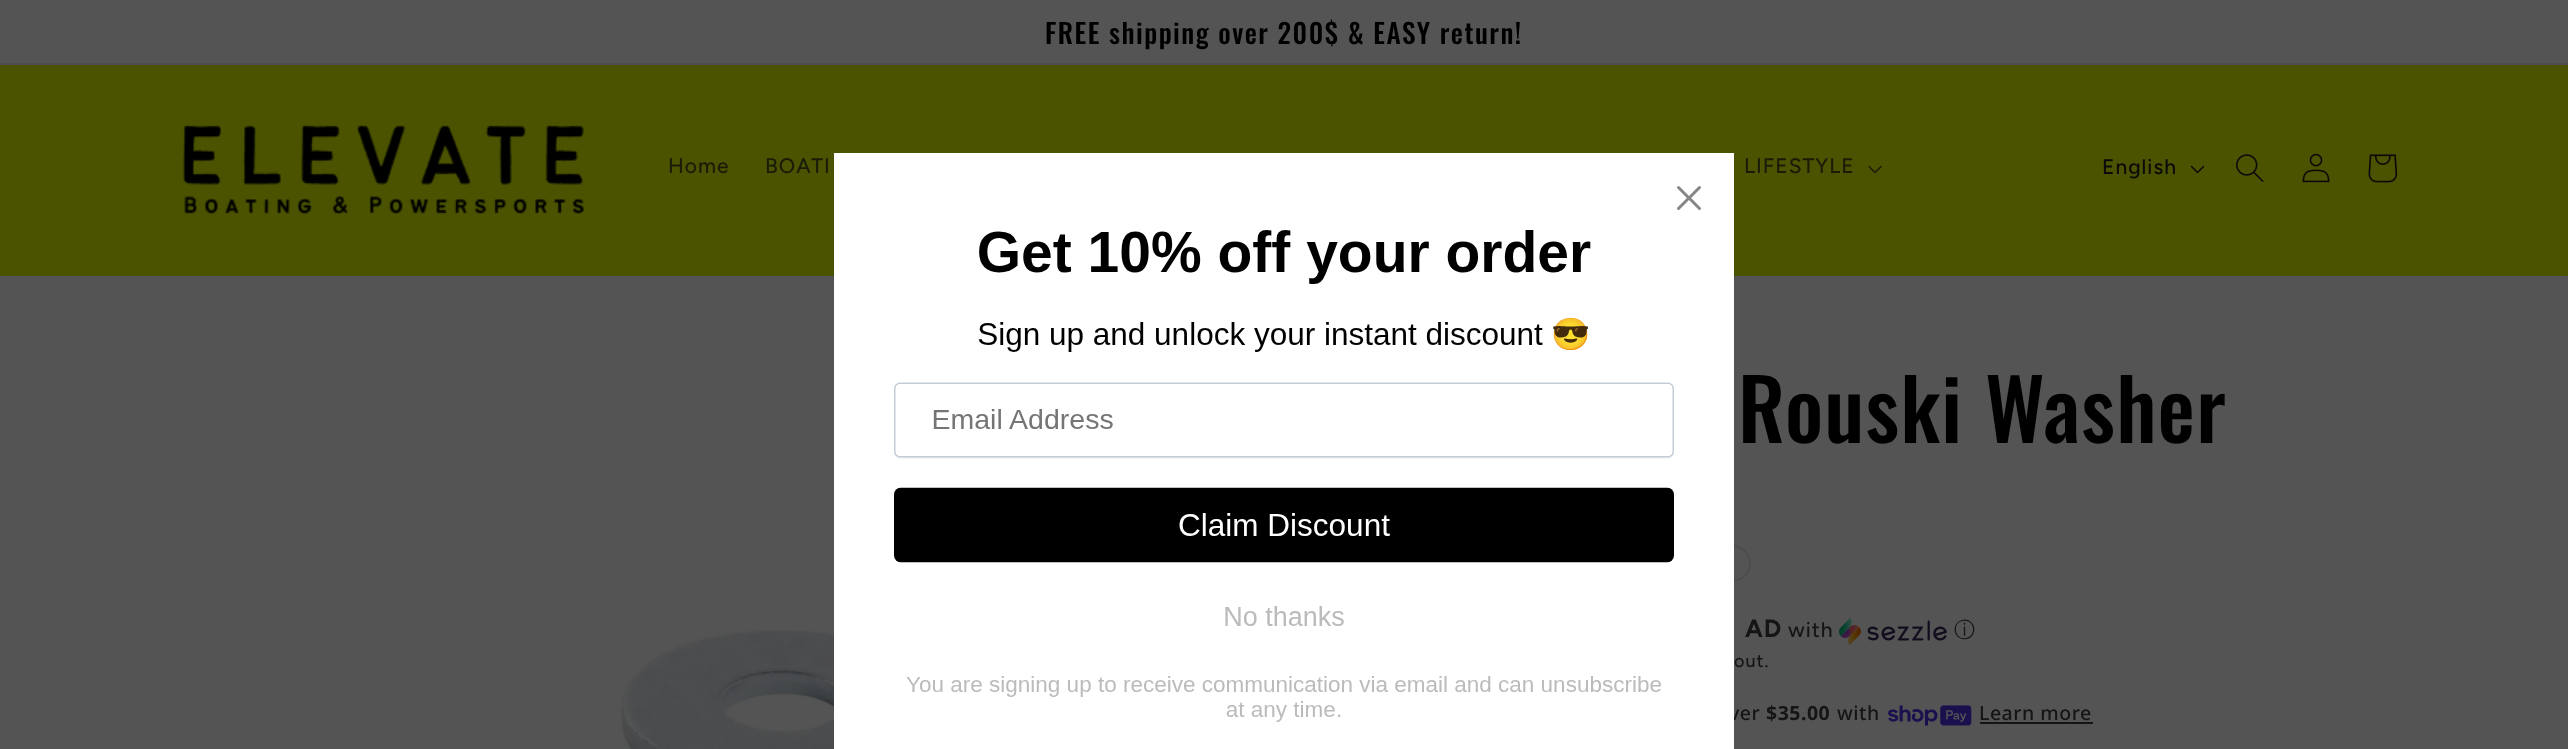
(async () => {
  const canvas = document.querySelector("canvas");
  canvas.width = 2568;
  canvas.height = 749;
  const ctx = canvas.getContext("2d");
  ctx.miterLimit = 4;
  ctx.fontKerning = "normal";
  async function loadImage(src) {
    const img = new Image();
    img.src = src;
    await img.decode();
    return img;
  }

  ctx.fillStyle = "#ffffff";
  ctx.fillRect(0, 0, 2568, 749);
  ctx.fillStyle = "#ebebeb";
  ctx.fillRect(0, 63, 2568, 2);
  ctx.fillStyle = "#e3fc02";
  ctx.fillRect(0, 65, 2568, 211);
  ctx.drawImage(await loadImage("img/2.png"), 182, 124, 403, 91);
  ctx.drawImage(await loadImage("img/3.png"), 1868, 165, 14, 9);
  ctx.drawImage(await loadImage("img/4.png"), 2190, 165, 15, 9);
  ctx.drawImage(await loadImage("img/5.png"), 2236, 154, 28, 28);
  ctx.drawImage(await loadImage("img/6.png"), 2302, 153, 28, 30);
  ctx.drawImage(await loadImage("img/7.png"), 2368, 154, 30, 29);
  ctx.drawImage(await loadImage("img/8.png"), 619, 629, 215, 120);
  ctx.beginPath();
  ctx.roundRect(1630, 546, 120, 35, 17.5);
  ctx.strokeStyle = "#e6e6e6";
  ctx.lineWidth = 2;
  ctx.stroke();
  ctx.drawImage(await loadImage("img/9.png"), 1839, 618, 108, 27);
  ctx.drawImage(await loadImage("img/10.png"), 1888, 705, 84, 21);
  ctx.fillStyle = "#404040";
  ctx.fillRect(1980, 722, 113, 2);
  ctx.letterSpacing = "1.5px";
  ctx.font = "500 27.25px Oswald";
  ctx.fillStyle = "#000000";
  ctx.fillText("FREE shipping over 200$ & EASY return!", 1045, 44);
  ctx.letterSpacing = "1px";
  ctx.font = "500 21px Figtree";
  ctx.fillStyle = "#505619";
  for (const [text, x, y] of [
    ["Home", 668, 173],
    ["BOATI", 765, 173],
    ["LIFESTYLE", 1744, 173],
  ]) {
    ctx.fillText(text, x, y);
  }
  ctx.fillStyle = "#1f1f21";
  ctx.fillText("English", 2102, 174);
  ctx.letterSpacing = "1.25px";
  ctx.font = "500 84px Oswald";
  ctx.fillStyle = "#000000";
  ctx.fillText("Rouski Washer", 1738, 443);
  ctx.letterSpacing = "1px";
  ctx.font = "bold 25px Figtree";
  ctx.fillStyle = "#404040";
  ctx.fillText("AD", 1745, 637);
  ctx.font = "500 21px Figtree";
  ctx.fillText("with", 1788, 637);
  ctx.font = "500 21px WenQuanYi Zen Hei";
  ctx.fillText("ⓘ", 1954, 637);
  ctx.font = "500 18px Figtree";
  ctx.fillText("out.", 1734, 667);
  ctx.letterSpacing = "0.5px";
  ctx.font = "500 19.5px Noto Sans";
  ctx.fillText("ver", 1729, 720);
  ctx.font = "bold 19.5px Noto Sans";
  ctx.fillText("$35.00", 1766, 720);
  ctx.font = "500 19.5px Noto Sans";
  ctx.fillText("with", 1837, 720);
  ctx.fillText("Learn more", 1979, 720);
  ctx.drawImage(await loadImage("img/1.png"), 0, 0, 2568, 749);
})();
